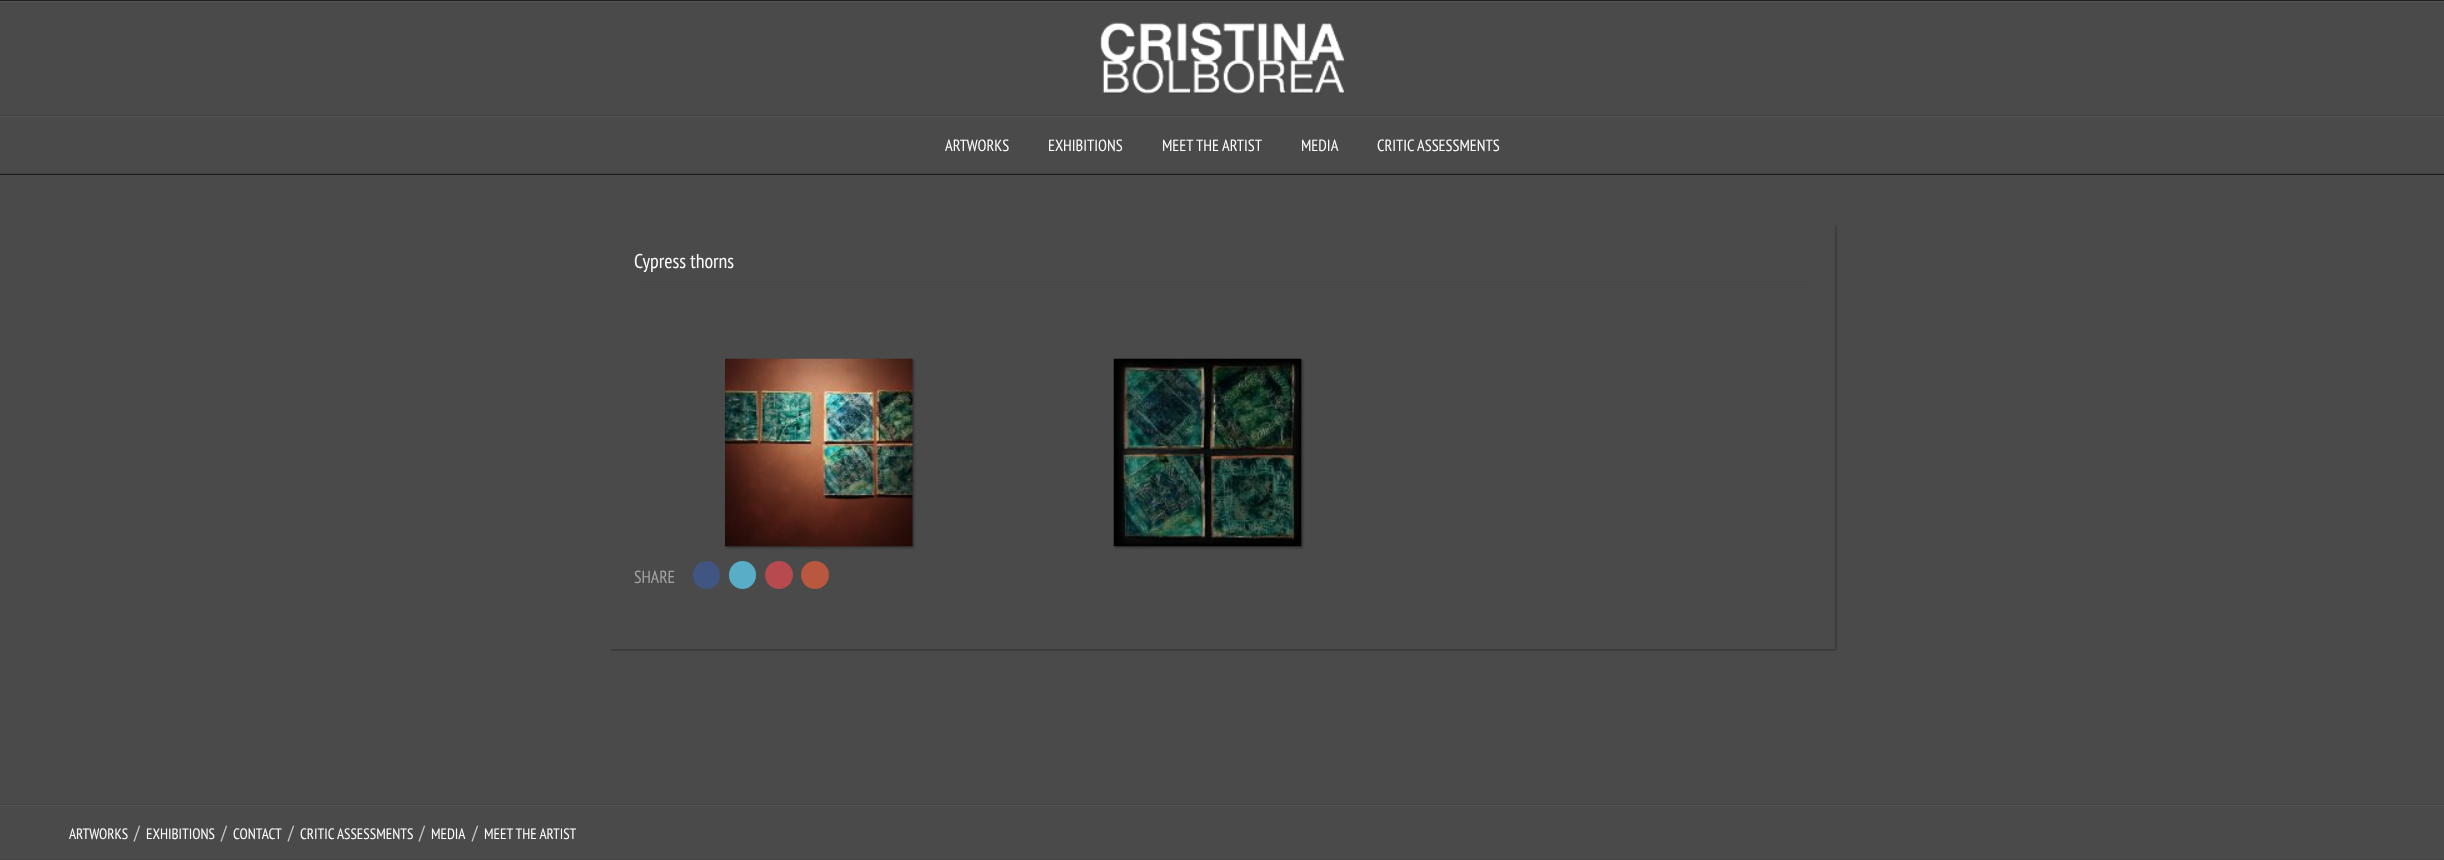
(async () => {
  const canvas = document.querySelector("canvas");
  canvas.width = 2444;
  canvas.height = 860;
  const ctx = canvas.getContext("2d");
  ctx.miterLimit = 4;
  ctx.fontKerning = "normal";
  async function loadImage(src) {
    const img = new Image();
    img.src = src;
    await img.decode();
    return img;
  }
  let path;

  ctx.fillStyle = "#4a4a4a";
  ctx.fillRect(0, 0, 2444, 860);
  for (const [x, y, w, h, color] of [
    [0, 1, 2444, 1, "#535353"],
    [0, 0, 2444, 1, "#1f1f1f"],
    [0, 174, 2444, 1, "#1f1f1f"],
  ]) {
    ctx.fillStyle = color;
    ctx.fillRect(x, y, w, h);
  }
  ctx.drawImage(await loadImage("img/1.png"), 1100, 22, 245, 72);
  for (const [x, y, w, h, color] of [
    [0, 116, 2444, 1, "#535353"],
    [0, 115, 2444, 1, "#434343"],
    [0, 173, 2444, 1, "#3e3e3e"],
  ]) {
    ctx.fillStyle = color;
    ctx.fillRect(x, y, w, h);
  }
  ctx.save();
  path = new Path2D("M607 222H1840V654H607ZM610 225H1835V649H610Z");
  ctx.clip(path, "evenodd");
  ctx.fillStyle = "rgba(43, 43, 43, 0.8)";
  ctx.filter = "blur(1px)";
  ctx.beginPath();
  ctx.rect(611, 226, 1225, 424);
  ctx.fill();
  ctx.filter = "none";
  ctx.restore();
  ctx.fillStyle = "#474747";
  ctx.fillRect(635, 281, 1175, 1);
  ctx.fillRect(635, 284, 1175, 1);
  ctx.fillStyle = "rgba(0, 0, 0, 0.3)";
  ctx.filter = "blur(1px)";
  ctx.beginPath();
  ctx.rect(726, 360, 188, 188);
  ctx.fill();
  ctx.filter = "none";
  ctx.drawImage(await loadImage("img/2.png"), 725, 358, 188, 189);
  ctx.filter = "blur(1px)";
  ctx.beginPath();
  ctx.rect(1115, 360, 188, 188);
  ctx.fill();
  ctx.filter = "none";
  ctx.drawImage(await loadImage("img/3.png"), 1113, 358, 189, 189);
  ctx.fillStyle = "#415583";
  ctx.beginPath();
  ctx.roundRect(693, 561, 27, 28, 13.5);
  ctx.fill();
  ctx.fillStyle = "#59adc7";
  ctx.beginPath();
  ctx.roundRect(729, 561, 27, 28, 13.5);
  ctx.fill();
  ctx.fillStyle = "#b74a4e";
  ctx.beginPath();
  ctx.arc(779, 575, 14, 0, Math.PI * 2);
  ctx.fill();
  ctx.fillStyle = "#b9573f";
  ctx.beginPath();
  ctx.arc(815, 575, 14, 0, Math.PI * 2);
  ctx.fill();
  for (const [x, y, w, h, color] of [
    [0, 805, 2444, 1, "#535353"],
    [0, 804, 2444, 1, "#434343"],
    [0, 859, 2444, 1, "#434343"],
  ]) {
    ctx.fillStyle = color;
    ctx.fillRect(x, y, w, h);
  }
  ctx.font = "16.25px PT Sans Narrow";
  ctx.fillStyle = "#ffffff";
  for (const [text, x, y] of [
    ["ARTWORKS", 945, 151],
    ["EXHIBITIONS", 1048, 151],
    ["MEET THE ARTIST", 1162, 151],
    ["MEDIA", 1301, 151],
    ["CRITIC ASSESSMENTS", 1377, 151],
  ]) {
    ctx.fillText(text, x, y);
  }
  ctx.font = "20px PT Sans Narrow";
  ctx.fillText("Cypress thorns", 634, 268);
  ctx.font = "17.5px PT Sans Narrow";
  ctx.fillStyle = "#a4a4a4";
  ctx.fillText("SHARE", 634, 583);
  ctx.font = "15px PT Sans Narrow";
  ctx.fillStyle = "#ffffff";
  ctx.fillText("ARTWORKS", 69, 839);
  ctx.font = "19px PT Sans Narrow";
  ctx.fillStyle = "#cbcbcb";
  ctx.fillText("/", 134, 839);
  ctx.font = "15px PT Sans Narrow";
  ctx.fillStyle = "#ffffff";
  ctx.fillText("EXHIBITIONS", 146, 839);
  ctx.font = "19px PT Sans Narrow";
  ctx.fillStyle = "#cbcbcb";
  ctx.fillText("/", 221, 839);
  ctx.font = "15px PT Sans Narrow";
  ctx.fillStyle = "#ffffff";
  ctx.fillText("CONTACT", 233, 839);
  ctx.font = "19px PT Sans Narrow";
  ctx.fillStyle = "#cbcbcb";
  ctx.fillText("/", 288, 839);
  ctx.font = "15px PT Sans Narrow";
  ctx.fillStyle = "#ffffff";
  ctx.fillText("CRITIC ASSESSMENTS", 300, 839);
  ctx.font = "19px PT Sans Narrow";
  ctx.fillStyle = "#cbcbcb";
  ctx.fillText("/", 419, 839);
  ctx.font = "15px PT Sans Narrow";
  ctx.fillStyle = "#ffffff";
  ctx.fillText("MEDIA", 431, 839);
  ctx.font = "19px PT Sans Narrow";
  ctx.fillStyle = "#cbcbcb";
  ctx.fillText("/", 472, 839);
  ctx.font = "15px PT Sans Narrow";
  ctx.fillStyle = "#ffffff";
  ctx.fillText("MEET THE ARTIST", 484, 839);
})();
